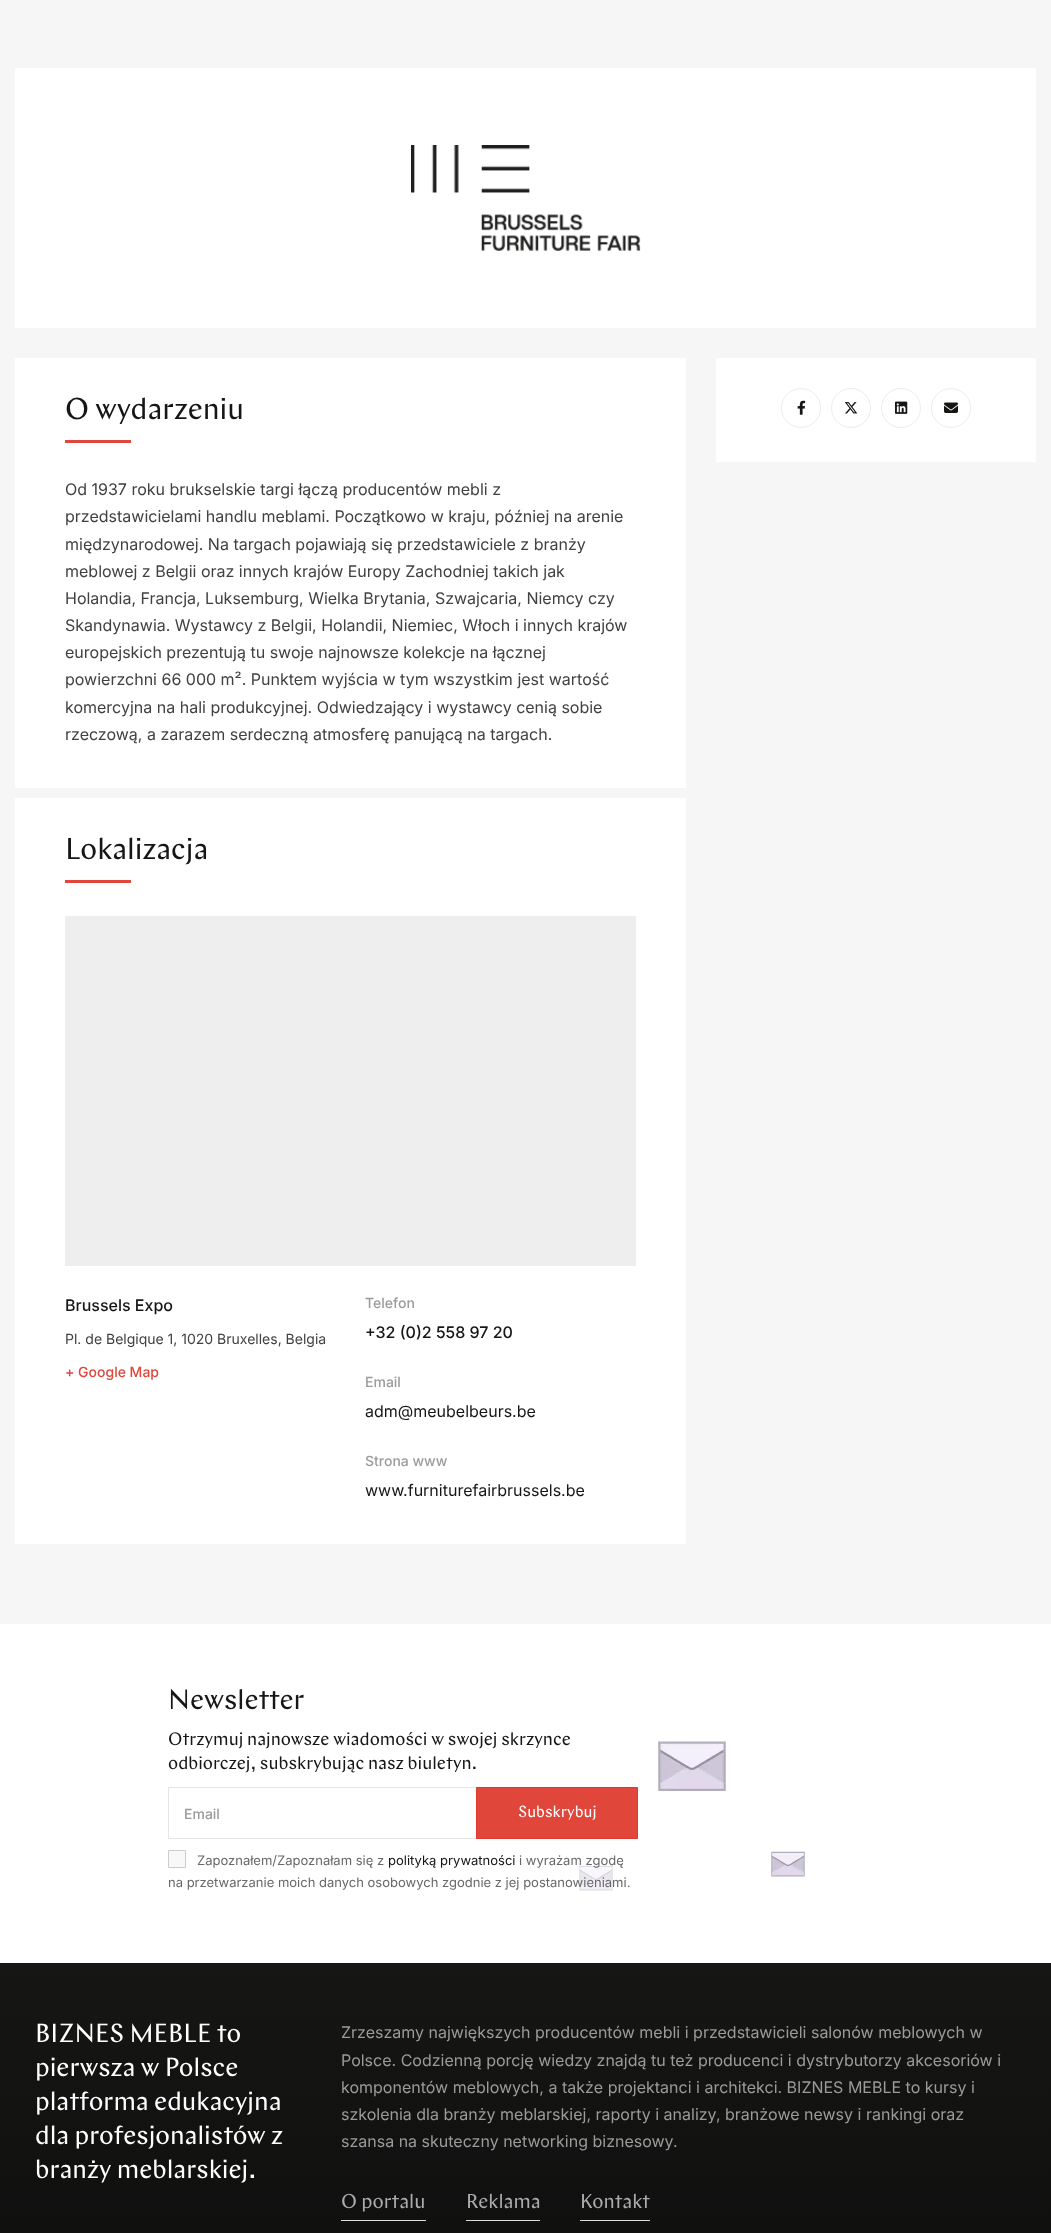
(async () => {
  const canvas = document.querySelector("canvas");
  canvas.width = 1051;
  canvas.height = 2233;
  const ctx = canvas.getContext("2d");
  ctx.miterLimit = 4;
  ctx.fontKerning = "normal";
  async function loadImage(src) {
    const img = new Image();
    img.src = src;
    await img.decode();
    return img;
  }
  let gradient;

  ctx.fillStyle = "#f6f6f6";
  ctx.fillRect(0, 0, 1051, 2233);
  ctx.fillStyle = "#ffffff";
  ctx.fillRect(15, 68, 1021, 260);
  ctx.drawImage(await loadImage("img/1.png"), 411, 145, 230, 106);
  for (const [x, y, w, h, color] of [
    [15, 358, 671, 430, "#ffffff"],
    [65, 440, 66, 3, "#e0463a"],
    [15, 798, 671, 746, "#ffffff"],
    [65, 880, 66, 3, "#e0463a"],
    [65, 916, 571, 350, "#eeeeee"],
    [716, 358, 320, 104, "#ffffff"],
  ]) {
    ctx.fillStyle = color;
    ctx.fillRect(x, y, w, h);
  }
  ctx.beginPath();
  ctx.arc(801, 408, 19.5, 0, Math.PI * 2);
  ctx.strokeStyle = "#ededed";
  ctx.stroke();
  ctx.drawImage(await loadImage("img/2.png"), 797, 400, 9, 15);
  ctx.beginPath();
  ctx.arc(851, 408, 19.5, 0, Math.PI * 2);
  ctx.stroke();
  ctx.drawImage(await loadImage("img/3.png"), 844, 402, 14, 12);
  ctx.beginPath();
  ctx.arc(901, 408, 19.5, 0, Math.PI * 2);
  ctx.stroke();
  ctx.drawImage(await loadImage("img/4.png"), 895, 401, 13, 13);
  ctx.beginPath();
  ctx.arc(951, 408, 19.5, 0, Math.PI * 2);
  ctx.stroke();
  ctx.drawImage(await loadImage("img/5.png"), 944, 402, 14, 11);
  ctx.fillRect(0, 1624, 1051, 339);
  ctx.drawImage(await loadImage("img/6.png"), 579, 1741, 226, 150);
  ctx.strokeStyle = "#e5e5e5";
  ctx.strokeRect(168.5, 1787.5, 422, 51);
  ctx.fillStyle = "#e0463a";
  ctx.beginPath();
  ctx.rect(476.5, 1787.5, 161, 51);
  ctx.fill();
  ctx.strokeStyle = "#de392c";
  ctx.stroke();
  ctx.fillStyle = "#f8f8f8";
  ctx.beginPath();
  ctx.rect(168.5, 1850.5, 17, 17);
  ctx.fill();
  ctx.strokeStyle = "#cccccc";
  ctx.stroke();
  gradient = ctx.createLinearGradient(525, 1963, 526, 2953);
  gradient.addColorStop(0, "#161615");
  gradient.addColorStop(1, "#000000");
  ctx.fillStyle = gradient;
  ctx.fillRect(0, 1963, 1051, 270);
  for (const [x, y, w, h, color] of [
    [341, 2220, 85, 1, "#dddddd"],
    [466, 2220, 74, 1, "#dddddd"],
    [580, 2220, 70, 1, "#dddddd"],
  ]) {
    ctx.fillStyle = color;
    ctx.fillRect(x, y, w, h);
  }
  ctx.font = "30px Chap";
  ctx.fillStyle = "#161615";
  ctx.fillText("O wydarzeniu", 65, 419);
  ctx.font = "16px Inter";
  ctx.fillStyle = "#414141";
  for (const [text, x, y] of [
    ["Od 1937 roku brukselskie targi łączą producentów mebli z", 65, 495],
    ["przedstawicielami handlu meblami. Początkowo w kraju, później na arenie", 65, 522],
    ["międzynarodowej. Na targach pojawiają się przedstawiciele z branży", 65, 550],
    ["meblowej z Belgii oraz innych krajów Europy Zachodniej takich jak", 65, 577],
    ["Holandia, Francja, Luksemburg, Wielka Brytania, Szwajcaria, Niemcy czy", 65, 604],
    ["Skandynawia. Wystawcy z Belgii, Holandii, Niemiec, Włoch i innych krajów", 65, 631],
    ["europejskich prezentują tu swoje najnowsze kolekcje na łącznej", 65, 658],
    ["powierzchni 66 000 m². Punktem wyjścia w tym wszystkim jest wartość", 65, 685],
    ["komercyjna na hali produkcyjnej. Odwiedzający i wystawcy cenią sobie", 65, 713],
    ["rzeczową, a zarazem serdeczną atmosferę panującą na targach.", 65, 740],
  ]) {
    ctx.fillText(text, x, y);
  }
  ctx.font = "30px Chap";
  ctx.fillStyle = "#161615";
  ctx.fillText("Lokalizacja", 65, 859);
  ctx.font = "500 16px Inter";
  ctx.fillText("Brussels Expo", 65, 1311);
  ctx.font = "14px Inter";
  ctx.fillStyle = "#414141";
  ctx.fillText("Pl. de Belgique 1, 1020 Bruxelles, Belgia", 65, 1344);
  ctx.font = "500 14px Inter";
  ctx.fillStyle = "#e0463a";
  ctx.fillText("+ Google Map", 65, 1377);
  ctx.fillStyle = "#9b9b9b";
  ctx.fillText("Telefon", 365, 1308);
  ctx.font = "500 16px Inter";
  ctx.fillStyle = "#161615";
  ctx.fillText("+32 (0)2 558 97 20", 365, 1338);
  ctx.font = "500 14px Inter";
  ctx.fillStyle = "#9b9b9b";
  ctx.fillText("Email", 365, 1387);
  ctx.font = "16px Inter";
  ctx.fillStyle = "#161615";
  ctx.fillText("adm@meubelbeurs.be", 365, 1417);
  ctx.font = "500 14px Inter";
  ctx.fillStyle = "#9b9b9b";
  ctx.fillText("Strona www", 365, 1466);
  ctx.font = "16px Inter";
  ctx.fillStyle = "#161615";
  ctx.fillText("www.furniturefairbrussels.be", 365, 1496);
  ctx.font = "28px Chap";
  ctx.fillText("Newsletter", 168, 1709);
  ctx.font = "18px Chap";
  ctx.fillText("Otrzymuj najnowsze wiadomości w swojej skrzynce", 168, 1745);
  ctx.fillText("odbiorczej, subskrybując nasz biuletyn.", 168, 1769);
  ctx.font = "16px Chap";
  ctx.fillStyle = "#ffffff";
  ctx.fillText("Subskrybuj", 518, 1817);
  ctx.font = "500 14px Inter";
  ctx.fillStyle = "#9b9b9b";
  ctx.fillText("Email", 184, 1819);
  ctx.font = "13px Inter";
  ctx.fillStyle = "#696969";
  ctx.fillText("Zapoznałem/Zapoznałam się z", 197, 1865);
  ctx.fillStyle = "#161615";
  ctx.fillText("polityką prywatności", 388, 1865);
  ctx.fillStyle = "#696969";
  ctx.fillText("i wyrażam zgodę", 519, 1865);
  ctx.fillText("na przetwarzanie moich danych osobowych zgodnie z jej postanowieniami.", 168, 1887);
  ctx.font = "26px Chap";
  ctx.fillStyle = "#ffffff";
  for (const [text, x, y] of [
    ["BIZNES MEBLE to", 35, 2042],
    ["pierwsza w Polsce", 35, 2076],
    ["platforma edukacyjna", 35, 2110],
    ["dla profesjonalistów z", 35, 2144],
    ["branży meblarskiej.", 35, 2178],
  ]) {
    ctx.fillText(text, x, y);
  }
  ctx.font = "16px Inter";
  ctx.fillStyle = "#9b9b9b";
  for (const [text, x, y] of [
    ["Zrzeszamy największych producentów mebli i przedstawicieli salonów meblowych w", 341, 2038],
    ["Polsce. Codzienną porcję wiedzy znajdą tu też producenci i dystrybutorzy akcesoriów i", 341, 2066],
    ["komponentów meblowych, a także projektanci i architekci. BIZNES MEBLE to kursy i", 341, 2093],
    ["szkolenia dla branży meblarskiej, raporty i analizy, branżowe newsy i rankingi oraz", 341, 2120],
    ["szansa na skuteczny networking biznesowy.", 341, 2147],
  ]) {
    ctx.fillText(text, x, y);
  }
  ctx.font = "20px Chap";
  ctx.fillStyle = "#ababab";
  for (const [text, x, y] of [
    ["O portalu", 341, 2208],
    ["Reklama", 466, 2208],
    ["Kontakt", 580, 2208],
  ]) {
    ctx.fillText(text, x, y);
  }
})();
